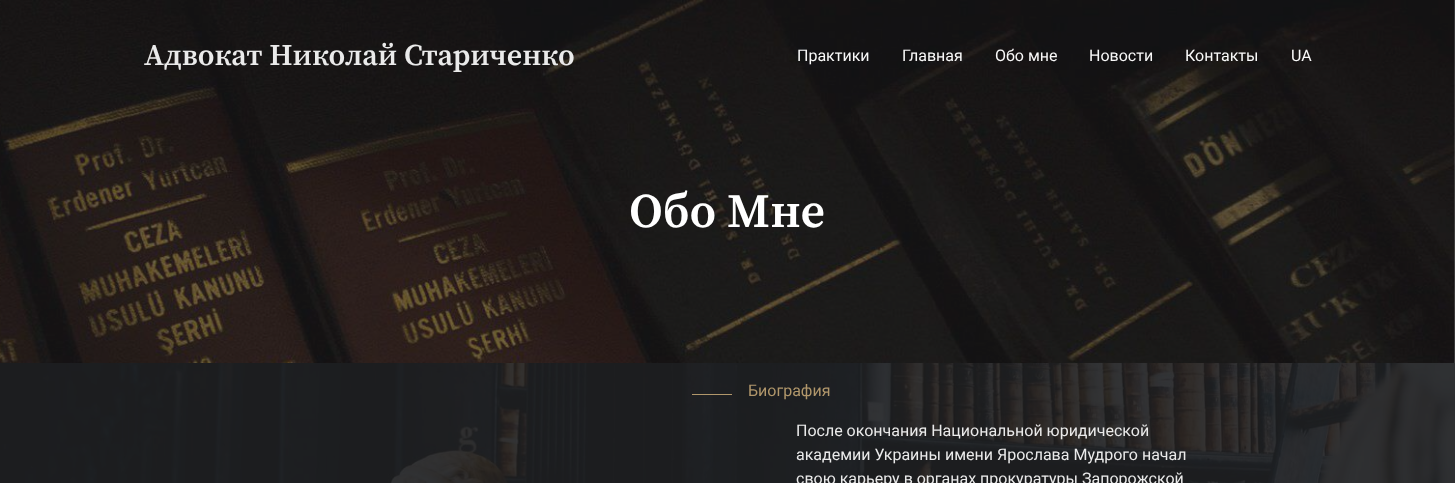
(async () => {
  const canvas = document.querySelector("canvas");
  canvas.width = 1455;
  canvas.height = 483;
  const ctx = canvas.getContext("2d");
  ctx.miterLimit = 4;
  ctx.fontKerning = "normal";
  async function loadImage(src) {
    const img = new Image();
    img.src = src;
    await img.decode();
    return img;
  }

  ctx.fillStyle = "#ffffff";
  ctx.fillRect(0, 0, 1455, 483);
  ctx.drawImage(await loadImage("img/1.png"), 0, 0, 1455, 363);
  ctx.drawImage(await loadImage("img/2.png"), 0, 363, 1455, 120);
  ctx.fillStyle = "#b1976b";
  ctx.fillRect(692, 394, 40, 1);
  ctx.font = "600 30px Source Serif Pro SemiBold";
  ctx.fillStyle = "#eaeaea";
  ctx.fillText("Адвокат Николай Стариченко", 144, 65);
  ctx.font = "16px Roboto";
  ctx.fillStyle = "#f9f9f9";
  for (const [text, x, y] of [
    ["Практики", 797, 61],
    ["Главная", 902, 61],
    ["Обо мне", 995, 61],
    ["Новости", 1089, 61],
    ["Контакты", 1185, 61],
    ["UA", 1291, 61],
  ]) {
    ctx.fillText(text, x, y);
  }
  ctx.font = "600 48px Source Serif Pro SemiBold";
  ctx.fillStyle = "#ffffff";
  ctx.fillText("Обо Мне", 629, 227);
  ctx.font = "16px Roboto";
  ctx.fillStyle = "#b1976b";
  ctx.fillText("Биография", 748, 396);
  ctx.fillStyle = "#eaeaea";
  for (const [text, x, y] of [
    ["После окончания Национальной юридической", 796, 436],
    ["академии Украины имени Ярослава Мудрого начал", 796, 460],
    ["свою карьеру в органах прокуратуры Запорожской", 796, 484],
  ]) {
    ctx.fillText(text, x, y);
  }
})();
